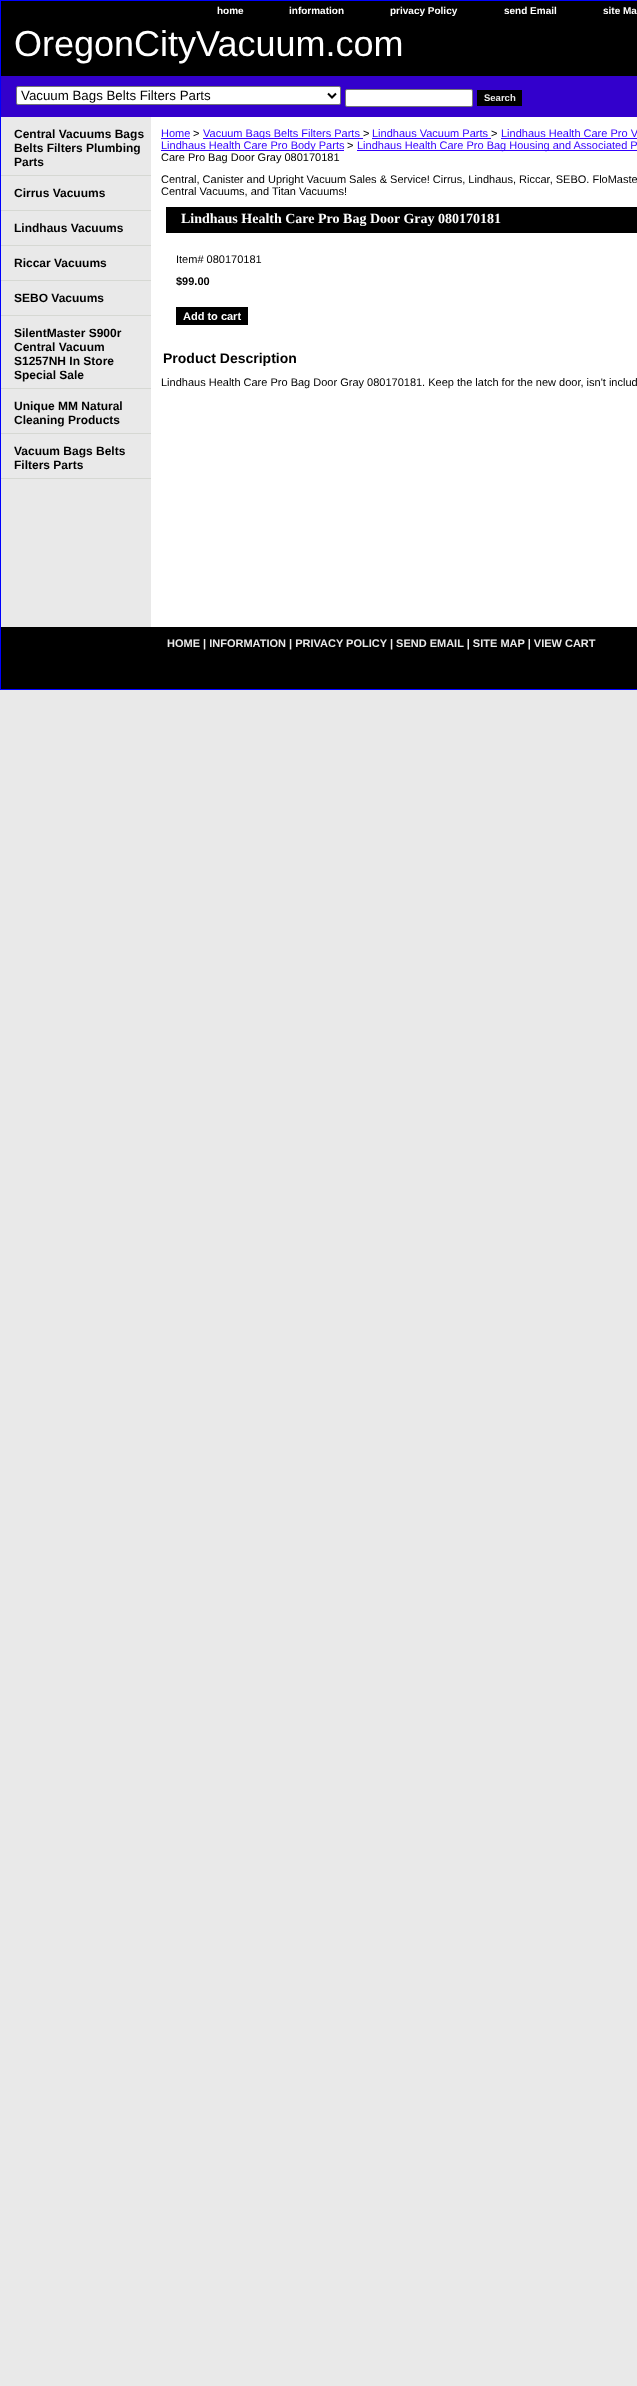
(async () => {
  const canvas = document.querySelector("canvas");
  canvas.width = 637;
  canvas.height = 2386;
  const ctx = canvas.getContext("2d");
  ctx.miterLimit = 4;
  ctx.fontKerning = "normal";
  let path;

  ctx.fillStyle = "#e9e9e9";
  ctx.fillRect(0, 0, 637, 2386);
  ctx.fillStyle = "#ffffff";
  ctx.fillRect(151, 117, 486, 510);
  ctx.strokeStyle = "#0000ff";
  ctx.strokeRect(0.5, 0.5, 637, 689);
  ctx.fillStyle = "#000000";
  ctx.fillRect(1, 1, 636, 75);
  ctx.fillStyle = "#3300cc";
  ctx.fillRect(1, 76, 636, 41);
  ctx.fillStyle = "#ffffff";
  ctx.beginPath();
  ctx.roundRect(16.5, 86.5, 324, 18, 1.5);
  ctx.fill();
  ctx.strokeStyle = "#767676";
  ctx.stroke();
  path = new Path2D("M328 93.5L332 97.5L336 93.5");
  ctx.strokeStyle = "#000000";
  ctx.lineWidth = 2;
  ctx.stroke(path);
  ctx.beginPath();
  ctx.roundRect(345.5, 89.5, 127, 17, 1.5);
  ctx.fill();
  ctx.strokeStyle = "#767676";
  ctx.lineWidth = 1;
  ctx.stroke();
  for (const [x, y, w, h, color] of [
    [477, 90, 45, 16, "#000000"],
    [1, 175, 150, 1, "#d6d8d3"],
    [1, 210, 150, 1, "#d6d8d3"],
    [1, 245, 150, 1, "#d6d8d3"],
    [1, 280, 150, 1, "#d6d8d3"],
    [1, 315, 150, 1, "#d6d8d3"],
    [1, 388, 150, 1, "#d6d8d3"],
    [1, 433, 150, 1, "#d6d8d3"],
    [1, 478, 150, 1, "#d6d8d3"],
    [161, 138, 29, 1, "#3300ff"],
    [203, 138, 160, 1, "#3300ff"],
    [372, 138, 119, 1, "#3300ff"],
    [501, 138, 136, 1, "#3300ff"],
    [161, 150, 183, 1, "#3300ff"],
    [357, 150, 280, 1, "#3300ff"],
    [166, 207, 471, 26, "#000000"],
    [176, 307, 72, 18, "#000000"],
    [1, 627, 636, 62, "#000000"],
  ]) {
    ctx.fillStyle = color;
    ctx.fillRect(x, y, w, h);
  }
  ctx.font = "bold 10px Liberation Sans";
  ctx.fillStyle = "#ffffff";
  for (const [text, x, y] of [
    ["home", 217, 14],
    ["information", 289, 14],
    ["privacy Policy", 390, 14],
    ["send Email", 504, 14],
    ["site Ma", 603, 14],
  ]) {
    ctx.fillText(text, x, y);
  }
  ctx.font = "36px Liberation Sans";
  ctx.fillText("OregonCityVacuum.com", 14, 56);
  ctx.font = "13.3px Liberation Sans";
  ctx.fillStyle = "#000000";
  ctx.fillText("Vacuum Bags Belts Filters Parts", 21, 100);
  ctx.font = "bold 9.5px Liberation Sans";
  ctx.fillStyle = "#e9e9e9";
  ctx.fillText("Search", 484, 101);
  ctx.font = "bold 12px Liberation Sans";
  ctx.fillStyle = "#000000";
  for (const [text, x, y] of [
    ["Central Vacuums Bags", 14, 138],
    ["Belts Filters Plumbing", 14, 152],
    ["Parts", 14, 166],
    ["Cirrus Vacuums", 14, 197],
    ["Lindhaus Vacuums", 14, 232],
    ["Riccar Vacuums", 14, 267],
    ["SEBO Vacuums", 14, 302],
    ["SilentMaster S900r", 14, 337],
    ["Central Vacuum", 14, 351],
    ["S1257NH In Store", 14, 365],
    ["Special Sale", 14, 379],
    ["Unique MM Natural", 14, 410],
    ["Cleaning Products", 14, 424],
    ["Vacuum Bags Belts", 14, 455],
    ["Filters Parts", 14, 469],
  ]) {
    ctx.fillText(text, x, y);
  }
  ctx.font = "11px Liberation Sans";
  ctx.fillStyle = "#3300ff";
  ctx.fillText("Home", 161, 137);
  ctx.fillStyle = "#000000";
  ctx.fillText(">", 193, 137);
  ctx.fillStyle = "#3300ff";
  ctx.fillText("Vacuum Bags Belts Filters Parts", 203, 137);
  ctx.fillStyle = "#000000";
  ctx.fillText(">", 363, 137);
  ctx.fillStyle = "#3300ff";
  ctx.fillText("Lindhaus Vacuum Parts", 372, 137);
  ctx.fillStyle = "#000000";
  ctx.fillText(">", 491, 137);
  ctx.fillStyle = "#3300ff";
  ctx.fillText("Lindhaus Health Care Pro V", 501, 137);
  ctx.fillText("Lindhaus Health Care Pro Body Parts", 161, 149);
  ctx.fillStyle = "#000000";
  ctx.fillText(">", 347, 149);
  ctx.fillStyle = "#3300ff";
  ctx.fillText("Lindhaus Health Care Pro Bag Housing and Associated P", 357, 149);
  ctx.fillStyle = "#000000";
  for (const [text, x, y] of [
    ["Care Pro Bag Door Gray 080170181", 161, 161],
    ["Central, Canister and Upright Vacuum Sales & Service! Cirrus, Lindhaus, Riccar, SEBO. FloMaste", 161, 183],
    ["Central Vacuums, and Titan Vacuums!", 161, 195],
  ]) {
    ctx.fillText(text, x, y);
  }
  ctx.font = "bold 14px Liberation Serif";
  ctx.fillStyle = "#ffffff";
  ctx.fillText("Lindhaus Health Care Pro Bag Door Gray 080170181", 181, 223);
  ctx.font = "11px Liberation Sans";
  ctx.fillStyle = "#000000";
  ctx.fillText("Item# 080170181", 176, 263);
  ctx.font = "bold 11px Liberation Sans";
  ctx.fillText("$99.00", 176, 285);
  ctx.fillStyle = "#ffffff";
  ctx.fillText("Add to cart", 183, 320);
  ctx.font = "bold 14px Liberation Sans";
  ctx.fillStyle = "#000000";
  ctx.fillText("Product Description", 163, 363);
  ctx.font = "11px Liberation Sans";
  ctx.fillText("Lindhaus Health Care Pro Bag Door Gray 080170181. Keep the latch for the new door, isn't includ", 161, 386);
  ctx.font = "bold 11px Liberation Sans";
  ctx.fillStyle = "#e9e9e9";
  ctx.fillText("HOME | INFORMATION | PRIVACY POLICY | SEND EMAIL | SITE MAP | VIEW CART", 167, 647);
})();
